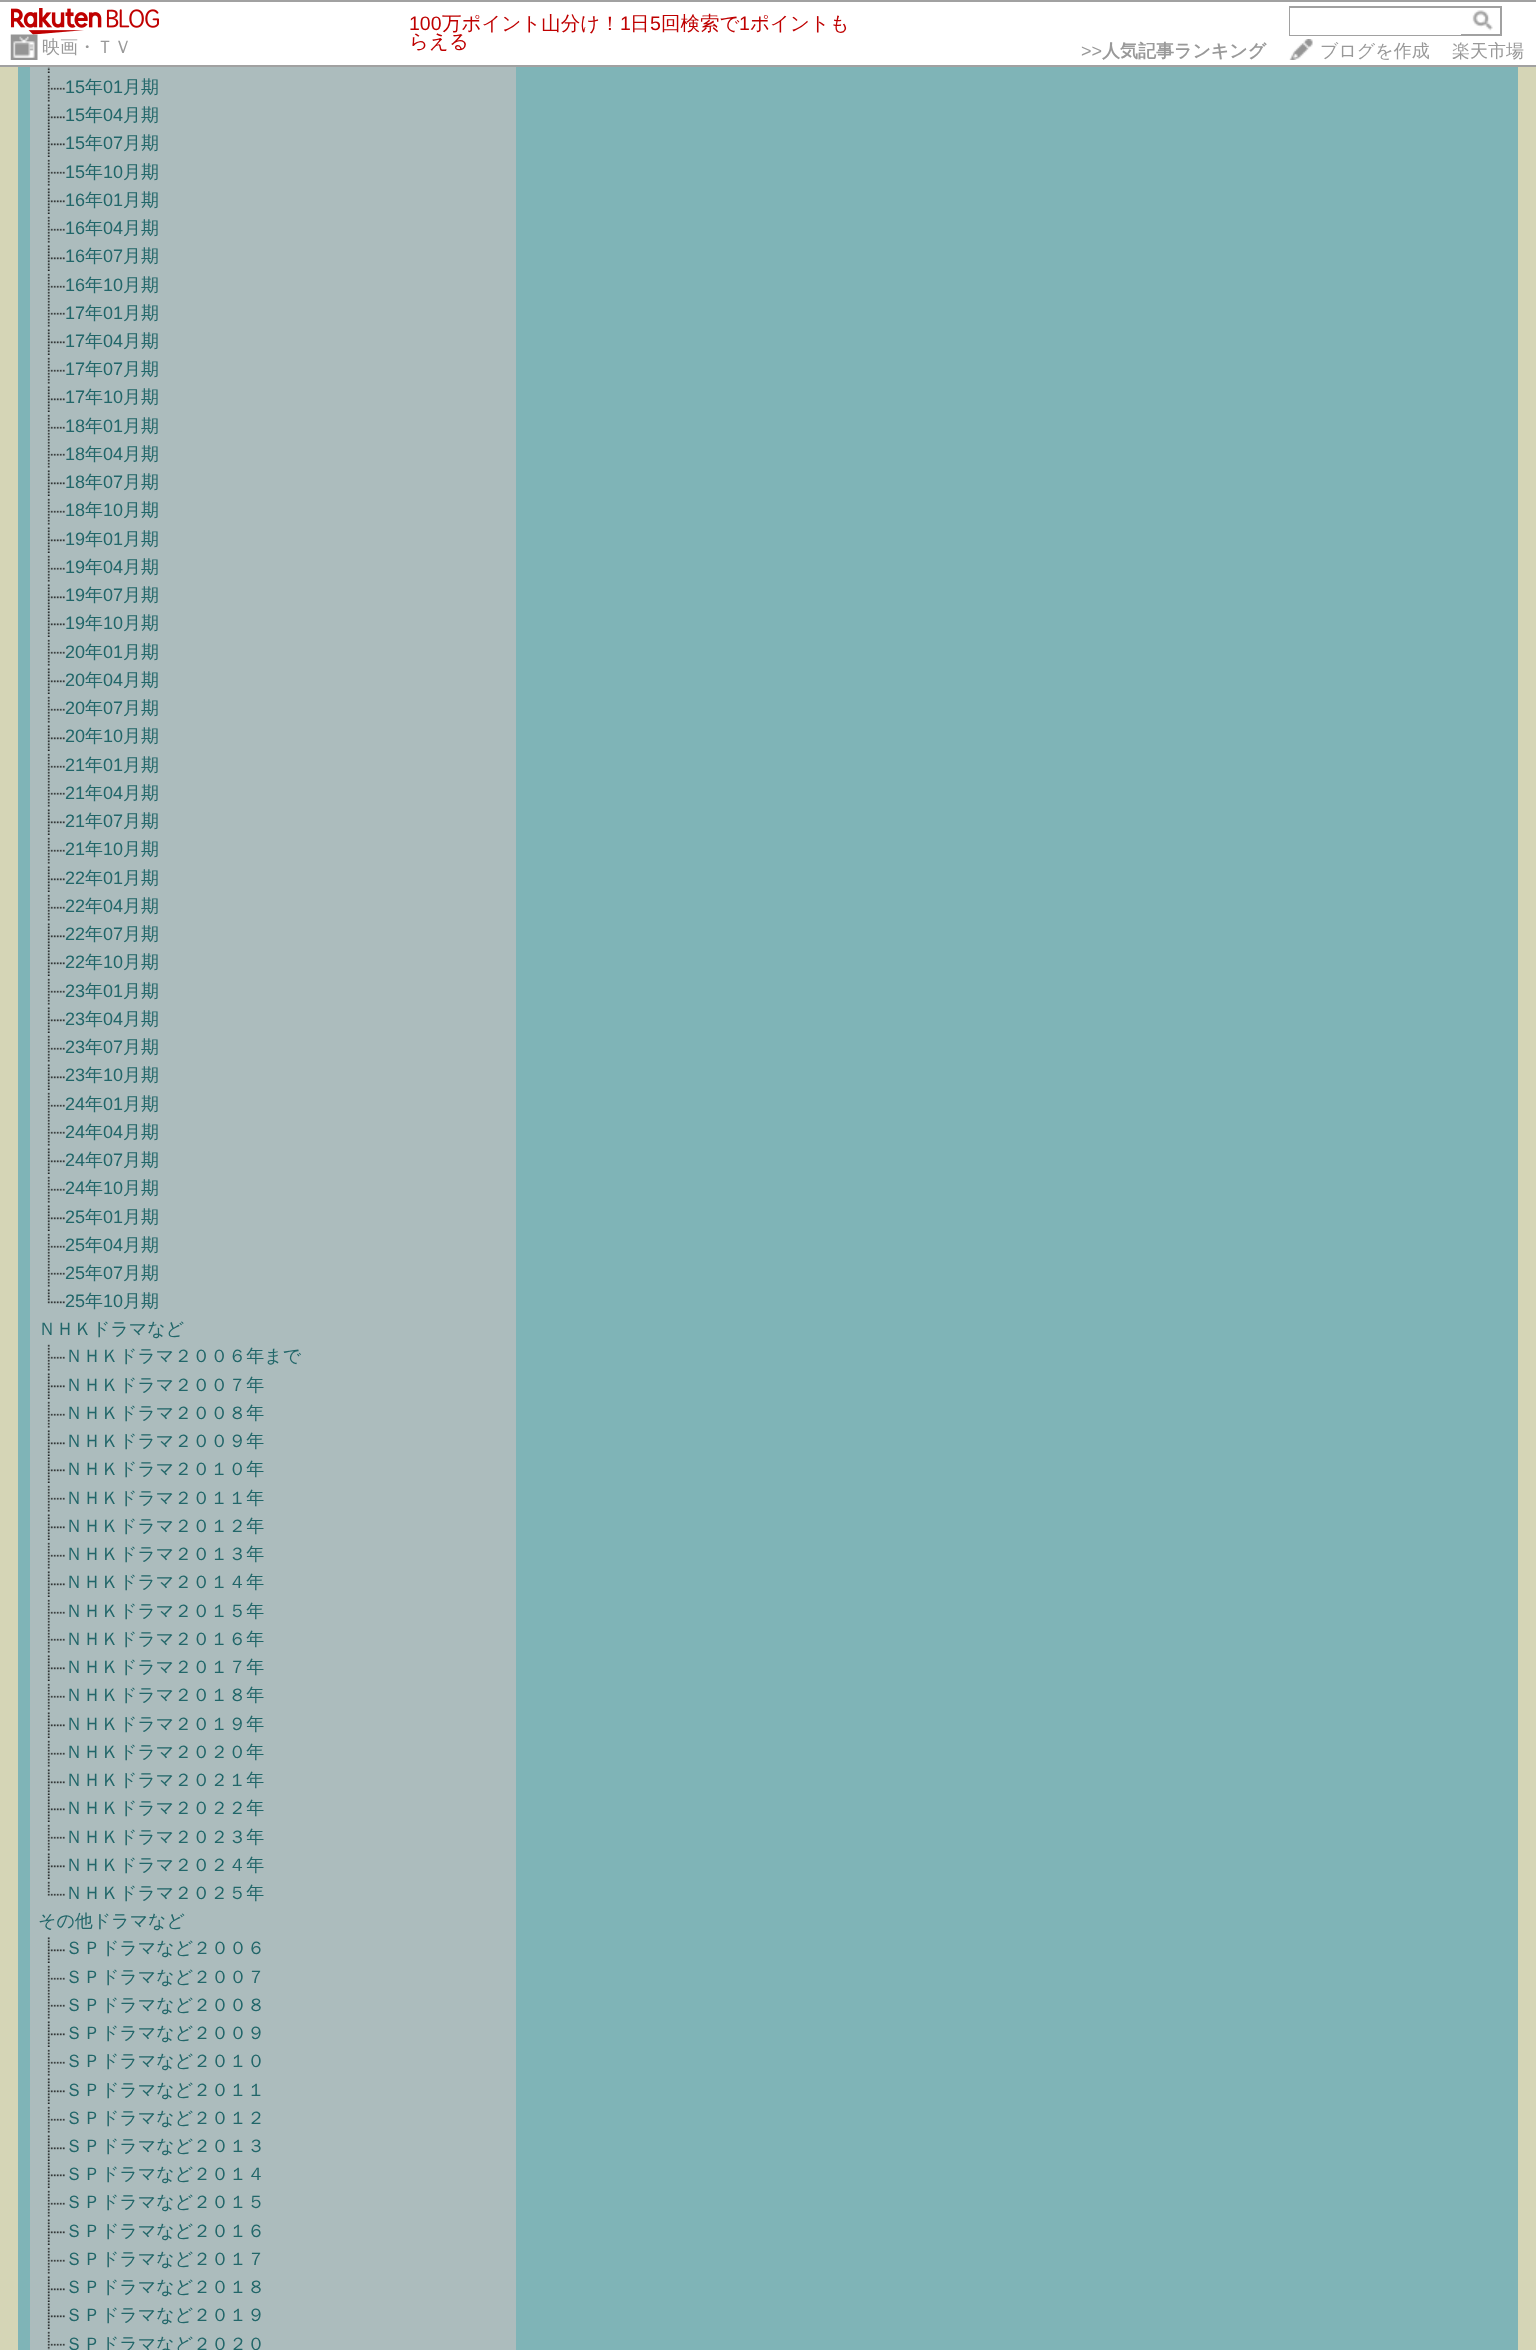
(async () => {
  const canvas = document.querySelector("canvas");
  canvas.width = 1536;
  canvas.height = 2350;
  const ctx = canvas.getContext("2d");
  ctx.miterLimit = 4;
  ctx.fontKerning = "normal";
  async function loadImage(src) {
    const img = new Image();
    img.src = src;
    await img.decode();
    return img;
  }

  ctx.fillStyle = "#d5d5b6";
  ctx.fillRect(0, 0, 1536, 2350);
  for (const [x, y, w, h, color] of [
    [0, 2, 1536, 63, "#ffffff"],
    [0, 0, 1536, 2, "#a1a1a1"],
    [0, 65, 1536, 2, "#a1a1a1"],
  ]) {
    ctx.fillStyle = color;
    ctx.fillRect(x, y, w, h);
  }
  ctx.drawImage(await loadImage("img/1.png"), 11, 8, 148, 27);
  ctx.drawImage(await loadImage("img/2.png"), 10, 34, 28, 26);
  ctx.strokeStyle = "#a1a1a1";
  ctx.lineWidth = 2;
  ctx.strokeRect(1290, 7, 211, 28);
  ctx.fillStyle = "#ffffff";
  ctx.fillRect(1290, 8, 171, 27);
  ctx.drawImage(await loadImage("img/3.png"), 1472, 10, 21, 21);
  ctx.drawImage(await loadImage("img/4.png"), 1289, 39, 24, 21);
  ctx.fillStyle = "#7fb4b7";
  ctx.fillRect(18, 67, 1500, 2283);
  ctx.fillStyle = "#acbcbd";
  ctx.fillRect(30, 67, 486, 2283);
  ctx.drawImage(await loadImage("img/5.png"), 47, 67, 3, 6);
  ctx.drawImage(await loadImage("img/6.png"), 47, 75, 18, 27);
  ctx.drawImage(await loadImage("img/7.png"), 47, 104, 18, 26);
  ctx.drawImage(await loadImage("img/7.png"), 47, 131, 18, 26);
  ctx.drawImage(await loadImage("img/6.png"), 47, 159, 18, 27);
  ctx.drawImage(await loadImage("img/7.png"), 47, 188, 18, 26);
  ctx.drawImage(await loadImage("img/6.png"), 47, 216, 18, 27);
  ctx.drawImage(await loadImage("img/7.png"), 47, 245, 18, 26);
  ctx.drawImage(await loadImage("img/6.png"), 47, 273, 18, 27);
  ctx.drawImage(await loadImage("img/6.png"), 47, 300, 18, 27);
  ctx.drawImage(await loadImage("img/7.png"), 47, 329, 18, 26);
  ctx.drawImage(await loadImage("img/6.png"), 47, 357, 18, 27);
  ctx.drawImage(await loadImage("img/7.png"), 47, 386, 18, 26);
  ctx.drawImage(await loadImage("img/6.png"), 47, 414, 18, 27);
  ctx.drawImage(await loadImage("img/6.png"), 47, 441, 18, 27);
  ctx.drawImage(await loadImage("img/7.png"), 47, 470, 18, 26);
  ctx.drawImage(await loadImage("img/6.png"), 47, 498, 18, 27);
  ctx.drawImage(await loadImage("img/7.png"), 47, 527, 18, 26);
  ctx.drawImage(await loadImage("img/6.png"), 47, 555, 18, 27);
  ctx.drawImage(await loadImage("img/7.png"), 47, 584, 18, 26);
  ctx.drawImage(await loadImage("img/7.png"), 47, 611, 18, 26);
  ctx.drawImage(await loadImage("img/6.png"), 47, 639, 18, 27);
  ctx.drawImage(await loadImage("img/7.png"), 47, 668, 18, 26);
  ctx.drawImage(await loadImage("img/6.png"), 47, 696, 18, 27);
  ctx.drawImage(await loadImage("img/7.png"), 47, 725, 18, 26);
  ctx.drawImage(await loadImage("img/6.png"), 47, 753, 18, 27);
  ctx.drawImage(await loadImage("img/6.png"), 47, 780, 18, 27);
  ctx.drawImage(await loadImage("img/7.png"), 47, 809, 18, 26);
  ctx.drawImage(await loadImage("img/6.png"), 47, 837, 18, 27);
  ctx.drawImage(await loadImage("img/7.png"), 47, 866, 18, 26);
  ctx.drawImage(await loadImage("img/6.png"), 47, 894, 18, 27);
  ctx.drawImage(await loadImage("img/7.png"), 47, 923, 18, 26);
  ctx.drawImage(await loadImage("img/7.png"), 47, 950, 18, 26);
  ctx.drawImage(await loadImage("img/6.png"), 47, 978, 18, 27);
  ctx.drawImage(await loadImage("img/7.png"), 47, 1007, 18, 26);
  ctx.drawImage(await loadImage("img/6.png"), 47, 1035, 18, 27);
  ctx.drawImage(await loadImage("img/7.png"), 47, 1064, 18, 26);
  ctx.drawImage(await loadImage("img/6.png"), 47, 1092, 18, 27);
  ctx.drawImage(await loadImage("img/6.png"), 47, 1119, 18, 27);
  ctx.drawImage(await loadImage("img/7.png"), 47, 1148, 18, 26);
  ctx.drawImage(await loadImage("img/6.png"), 47, 1176, 18, 27);
  ctx.drawImage(await loadImage("img/7.png"), 47, 1205, 18, 26);
  ctx.drawImage(await loadImage("img/6.png"), 47, 1233, 18, 27);
  ctx.drawImage(await loadImage("img/6.png"), 47, 1260, 18, 27);
  ctx.drawImage(await loadImage("img/8.png"), 47, 1289, 18, 15);
  ctx.drawImage(await loadImage("img/6.png"), 47, 1344, 18, 27);
  ctx.drawImage(await loadImage("img/7.png"), 47, 1373, 18, 26);
  ctx.drawImage(await loadImage("img/6.png"), 47, 1401, 18, 27);
  ctx.drawImage(await loadImage("img/7.png"), 47, 1430, 18, 26);
  ctx.drawImage(await loadImage("img/7.png"), 47, 1457, 18, 26);
  ctx.drawImage(await loadImage("img/6.png"), 47, 1485, 18, 27);
  ctx.drawImage(await loadImage("img/7.png"), 47, 1514, 18, 26);
  ctx.drawImage(await loadImage("img/6.png"), 47, 1542, 18, 27);
  ctx.drawImage(await loadImage("img/7.png"), 47, 1571, 18, 26);
  ctx.drawImage(await loadImage("img/6.png"), 47, 1599, 18, 27);
  ctx.drawImage(await loadImage("img/6.png"), 47, 1626, 18, 27);
  ctx.drawImage(await loadImage("img/7.png"), 47, 1655, 18, 26);
  ctx.drawImage(await loadImage("img/6.png"), 47, 1683, 18, 27);
  ctx.drawImage(await loadImage("img/7.png"), 47, 1712, 18, 26);
  ctx.drawImage(await loadImage("img/6.png"), 47, 1740, 18, 27);
  ctx.drawImage(await loadImage("img/7.png"), 47, 1769, 18, 26);
  ctx.drawImage(await loadImage("img/7.png"), 47, 1796, 18, 26);
  ctx.drawImage(await loadImage("img/6.png"), 47, 1824, 18, 27);
  ctx.drawImage(await loadImage("img/7.png"), 47, 1853, 18, 26);
  ctx.drawImage(await loadImage("img/9.png"), 47, 1881, 18, 15);
  ctx.drawImage(await loadImage("img/7.png"), 47, 1937, 18, 26);
  ctx.drawImage(await loadImage("img/6.png"), 47, 1965, 18, 27);
  ctx.drawImage(await loadImage("img/6.png"), 47, 1992, 18, 27);
  ctx.drawImage(await loadImage("img/7.png"), 47, 2021, 18, 26);
  ctx.drawImage(await loadImage("img/6.png"), 47, 2049, 18, 27);
  ctx.drawImage(await loadImage("img/7.png"), 47, 2078, 18, 26);
  ctx.drawImage(await loadImage("img/6.png"), 47, 2106, 18, 27);
  ctx.drawImage(await loadImage("img/7.png"), 47, 2135, 18, 26);
  ctx.drawImage(await loadImage("img/7.png"), 47, 2162, 18, 26);
  ctx.drawImage(await loadImage("img/6.png"), 47, 2190, 18, 27);
  ctx.drawImage(await loadImage("img/7.png"), 47, 2219, 18, 26);
  ctx.drawImage(await loadImage("img/6.png"), 47, 2247, 18, 27);
  ctx.drawImage(await loadImage("img/7.png"), 47, 2276, 18, 26);
  ctx.drawImage(await loadImage("img/7.png"), 47, 2303, 18, 26);
  ctx.drawImage(await loadImage("img/10.png"), 47, 2331, 18, 19);
  ctx.font = "500 18px WenQuanYi Zen Hei";
  ctx.fillStyle = "#999999";
  ctx.fillText("映画・ＴＶ", 42, 53);
  ctx.font = "19.5px Liberation Sans";
  ctx.fillStyle = "#bf0000";
  ctx.fillText("100", 409, 30);
  ctx.font = "500 19.5px WenQuanYi Zen Hei";
  ctx.fillText("万ポイント山分け！", 442, 30);
  ctx.font = "19.5px Liberation Sans";
  ctx.fillText("1", 620, 30);
  ctx.font = "500 19.5px WenQuanYi Zen Hei";
  ctx.fillText("日", 630, 30);
  ctx.font = "19.5px Liberation Sans";
  ctx.fillText("5", 650, 30);
  ctx.font = "500 19.5px WenQuanYi Zen Hei";
  ctx.fillText("回検索で", 661, 30);
  ctx.font = "19.5px Liberation Sans";
  ctx.fillText("1", 739, 30);
  ctx.font = "500 19.5px WenQuanYi Zen Hei";
  ctx.fillText("ポイントも", 750, 30);
  ctx.fillText("らえる", 409, 48);
  ctx.font = "18px Liberation Sans";
  ctx.fillStyle = "#999999";
  ctx.fillText(">>", 1081, 57);
  ctx.font = "bold 18px WenQuanYi Zen Hei";
  ctx.fillText("人気記事ランキング", 1102, 57);
  ctx.font = "500 18px WenQuanYi Zen Hei";
  ctx.fillText("ブログを作成", 1320, 57);
  ctx.fillText("楽天市場", 1452, 57);
  ctx.font = "18px Liberation Sans";
  ctx.fillStyle = "#216669";
  ctx.fillText("15", 65, 93);
  ctx.font = "500 18px WenQuanYi Zen Hei";
  ctx.fillText("年", 85, 93);
  ctx.font = "18px Liberation Sans";
  ctx.fillText("01", 103, 93);
  ctx.font = "500 18px WenQuanYi Zen Hei";
  ctx.fillText("月期", 123, 93);
  ctx.font = "18px Liberation Sans";
  ctx.fillText("15", 65, 121);
  ctx.font = "500 18px WenQuanYi Zen Hei";
  ctx.fillText("年", 85, 121);
  ctx.font = "18px Liberation Sans";
  ctx.fillText("04", 103, 121);
  ctx.font = "500 18px WenQuanYi Zen Hei";
  ctx.fillText("月期", 123, 121);
  ctx.font = "18px Liberation Sans";
  ctx.fillText("15", 65, 149);
  ctx.font = "500 18px WenQuanYi Zen Hei";
  ctx.fillText("年", 85, 149);
  ctx.font = "18px Liberation Sans";
  ctx.fillText("07", 103, 149);
  ctx.font = "500 18px WenQuanYi Zen Hei";
  ctx.fillText("月期", 123, 149);
  ctx.font = "18px Liberation Sans";
  ctx.fillText("15", 65, 178);
  ctx.font = "500 18px WenQuanYi Zen Hei";
  ctx.fillText("年", 85, 178);
  ctx.font = "18px Liberation Sans";
  ctx.fillText("10", 103, 178);
  ctx.font = "500 18px WenQuanYi Zen Hei";
  ctx.fillText("月期", 123, 178);
  ctx.font = "18px Liberation Sans";
  ctx.fillText("16", 65, 206);
  ctx.font = "500 18px WenQuanYi Zen Hei";
  ctx.fillText("年", 85, 206);
  ctx.font = "18px Liberation Sans";
  ctx.fillText("01", 103, 206);
  ctx.font = "500 18px WenQuanYi Zen Hei";
  ctx.fillText("月期", 123, 206);
  ctx.font = "18px Liberation Sans";
  ctx.fillText("16", 65, 234);
  ctx.font = "500 18px WenQuanYi Zen Hei";
  ctx.fillText("年", 85, 234);
  ctx.font = "18px Liberation Sans";
  ctx.fillText("04", 103, 234);
  ctx.font = "500 18px WenQuanYi Zen Hei";
  ctx.fillText("月期", 123, 234);
  ctx.font = "18px Liberation Sans";
  ctx.fillText("16", 65, 262);
  ctx.font = "500 18px WenQuanYi Zen Hei";
  ctx.fillText("年", 85, 262);
  ctx.font = "18px Liberation Sans";
  ctx.fillText("07", 103, 262);
  ctx.font = "500 18px WenQuanYi Zen Hei";
  ctx.fillText("月期", 123, 262);
  ctx.font = "18px Liberation Sans";
  ctx.fillText("16", 65, 291);
  ctx.font = "500 18px WenQuanYi Zen Hei";
  ctx.fillText("年", 85, 291);
  ctx.font = "18px Liberation Sans";
  ctx.fillText("10", 103, 291);
  ctx.font = "500 18px WenQuanYi Zen Hei";
  ctx.fillText("月期", 123, 291);
  ctx.font = "18px Liberation Sans";
  ctx.fillText("17", 65, 319);
  ctx.font = "500 18px WenQuanYi Zen Hei";
  ctx.fillText("年", 85, 319);
  ctx.font = "18px Liberation Sans";
  ctx.fillText("01", 103, 319);
  ctx.font = "500 18px WenQuanYi Zen Hei";
  ctx.fillText("月期", 123, 319);
  ctx.font = "18px Liberation Sans";
  ctx.fillText("17", 65, 347);
  ctx.font = "500 18px WenQuanYi Zen Hei";
  ctx.fillText("年", 85, 347);
  ctx.font = "18px Liberation Sans";
  ctx.fillText("04", 103, 347);
  ctx.font = "500 18px WenQuanYi Zen Hei";
  ctx.fillText("月期", 123, 347);
  ctx.font = "18px Liberation Sans";
  ctx.fillText("17", 65, 375);
  ctx.font = "500 18px WenQuanYi Zen Hei";
  ctx.fillText("年", 85, 375);
  ctx.font = "18px Liberation Sans";
  ctx.fillText("07", 103, 375);
  ctx.font = "500 18px WenQuanYi Zen Hei";
  ctx.fillText("月期", 123, 375);
  ctx.font = "18px Liberation Sans";
  ctx.fillText("17", 65, 403);
  ctx.font = "500 18px WenQuanYi Zen Hei";
  ctx.fillText("年", 85, 403);
  ctx.font = "18px Liberation Sans";
  ctx.fillText("10", 103, 403);
  ctx.font = "500 18px WenQuanYi Zen Hei";
  ctx.fillText("月期", 123, 403);
  ctx.font = "18px Liberation Sans";
  ctx.fillText("18", 65, 432);
  ctx.font = "500 18px WenQuanYi Zen Hei";
  ctx.fillText("年", 85, 432);
  ctx.font = "18px Liberation Sans";
  ctx.fillText("01", 103, 432);
  ctx.font = "500 18px WenQuanYi Zen Hei";
  ctx.fillText("月期", 123, 432);
  ctx.font = "18px Liberation Sans";
  ctx.fillText("18", 65, 460);
  ctx.font = "500 18px WenQuanYi Zen Hei";
  ctx.fillText("年", 85, 460);
  ctx.font = "18px Liberation Sans";
  ctx.fillText("04", 103, 460);
  ctx.font = "500 18px WenQuanYi Zen Hei";
  ctx.fillText("月期", 123, 460);
  ctx.font = "18px Liberation Sans";
  ctx.fillText("18", 65, 488);
  ctx.font = "500 18px WenQuanYi Zen Hei";
  ctx.fillText("年", 85, 488);
  ctx.font = "18px Liberation Sans";
  ctx.fillText("07", 103, 488);
  ctx.font = "500 18px WenQuanYi Zen Hei";
  ctx.fillText("月期", 123, 488);
  ctx.font = "18px Liberation Sans";
  ctx.fillText("18", 65, 516);
  ctx.font = "500 18px WenQuanYi Zen Hei";
  ctx.fillText("年", 85, 516);
  ctx.font = "18px Liberation Sans";
  ctx.fillText("10", 103, 516);
  ctx.font = "500 18px WenQuanYi Zen Hei";
  ctx.fillText("月期", 123, 516);
  ctx.font = "18px Liberation Sans";
  ctx.fillText("19", 65, 545);
  ctx.font = "500 18px WenQuanYi Zen Hei";
  ctx.fillText("年", 85, 545);
  ctx.font = "18px Liberation Sans";
  ctx.fillText("01", 103, 545);
  ctx.font = "500 18px WenQuanYi Zen Hei";
  ctx.fillText("月期", 123, 545);
  ctx.font = "18px Liberation Sans";
  ctx.fillText("19", 65, 573);
  ctx.font = "500 18px WenQuanYi Zen Hei";
  ctx.fillText("年", 85, 573);
  ctx.font = "18px Liberation Sans";
  ctx.fillText("04", 103, 573);
  ctx.font = "500 18px WenQuanYi Zen Hei";
  ctx.fillText("月期", 123, 573);
  ctx.font = "18px Liberation Sans";
  ctx.fillText("19", 65, 601);
  ctx.font = "500 18px WenQuanYi Zen Hei";
  ctx.fillText("年", 85, 601);
  ctx.font = "18px Liberation Sans";
  ctx.fillText("07", 103, 601);
  ctx.font = "500 18px WenQuanYi Zen Hei";
  ctx.fillText("月期", 123, 601);
  ctx.font = "18px Liberation Sans";
  ctx.fillText("19", 65, 629);
  ctx.font = "500 18px WenQuanYi Zen Hei";
  ctx.fillText("年", 85, 629);
  ctx.font = "18px Liberation Sans";
  ctx.fillText("10", 103, 629);
  ctx.font = "500 18px WenQuanYi Zen Hei";
  ctx.fillText("月期", 123, 629);
  ctx.font = "18px Liberation Sans";
  ctx.fillText("20", 65, 658);
  ctx.font = "500 18px WenQuanYi Zen Hei";
  ctx.fillText("年", 85, 658);
  ctx.font = "18px Liberation Sans";
  ctx.fillText("01", 103, 658);
  ctx.font = "500 18px WenQuanYi Zen Hei";
  ctx.fillText("月期", 123, 658);
  ctx.font = "18px Liberation Sans";
  ctx.fillText("20", 65, 686);
  ctx.font = "500 18px WenQuanYi Zen Hei";
  ctx.fillText("年", 85, 686);
  ctx.font = "18px Liberation Sans";
  ctx.fillText("04", 103, 686);
  ctx.font = "500 18px WenQuanYi Zen Hei";
  ctx.fillText("月期", 123, 686);
  ctx.font = "18px Liberation Sans";
  ctx.fillText("20", 65, 714);
  ctx.font = "500 18px WenQuanYi Zen Hei";
  ctx.fillText("年", 85, 714);
  ctx.font = "18px Liberation Sans";
  ctx.fillText("07", 103, 714);
  ctx.font = "500 18px WenQuanYi Zen Hei";
  ctx.fillText("月期", 123, 714);
  ctx.font = "18px Liberation Sans";
  ctx.fillText("20", 65, 742);
  ctx.font = "500 18px WenQuanYi Zen Hei";
  ctx.fillText("年", 85, 742);
  ctx.font = "18px Liberation Sans";
  ctx.fillText("10", 103, 742);
  ctx.font = "500 18px WenQuanYi Zen Hei";
  ctx.fillText("月期", 123, 742);
  ctx.font = "18px Liberation Sans";
  ctx.fillText("21", 65, 771);
  ctx.font = "500 18px WenQuanYi Zen Hei";
  ctx.fillText("年", 85, 771);
  ctx.font = "18px Liberation Sans";
  ctx.fillText("01", 103, 771);
  ctx.font = "500 18px WenQuanYi Zen Hei";
  ctx.fillText("月期", 123, 771);
  ctx.font = "18px Liberation Sans";
  ctx.fillText("21", 65, 799);
  ctx.font = "500 18px WenQuanYi Zen Hei";
  ctx.fillText("年", 85, 799);
  ctx.font = "18px Liberation Sans";
  ctx.fillText("04", 103, 799);
  ctx.font = "500 18px WenQuanYi Zen Hei";
  ctx.fillText("月期", 123, 799);
  ctx.font = "18px Liberation Sans";
  ctx.fillText("21", 65, 827);
  ctx.font = "500 18px WenQuanYi Zen Hei";
  ctx.fillText("年", 85, 827);
  ctx.font = "18px Liberation Sans";
  ctx.fillText("07", 103, 827);
  ctx.font = "500 18px WenQuanYi Zen Hei";
  ctx.fillText("月期", 123, 827);
  ctx.font = "18px Liberation Sans";
  ctx.fillText("21", 65, 855);
  ctx.font = "500 18px WenQuanYi Zen Hei";
  ctx.fillText("年", 85, 855);
  ctx.font = "18px Liberation Sans";
  ctx.fillText("10", 103, 855);
  ctx.font = "500 18px WenQuanYi Zen Hei";
  ctx.fillText("月期", 123, 855);
  ctx.font = "18px Liberation Sans";
  ctx.fillText("22", 65, 884);
  ctx.font = "500 18px WenQuanYi Zen Hei";
  ctx.fillText("年", 85, 884);
  ctx.font = "18px Liberation Sans";
  ctx.fillText("01", 103, 884);
  ctx.font = "500 18px WenQuanYi Zen Hei";
  ctx.fillText("月期", 123, 884);
  ctx.font = "18px Liberation Sans";
  ctx.fillText("22", 65, 912);
  ctx.font = "500 18px WenQuanYi Zen Hei";
  ctx.fillText("年", 85, 912);
  ctx.font = "18px Liberation Sans";
  ctx.fillText("04", 103, 912);
  ctx.font = "500 18px WenQuanYi Zen Hei";
  ctx.fillText("月期", 123, 912);
  ctx.font = "18px Liberation Sans";
  ctx.fillText("22", 65, 940);
  ctx.font = "500 18px WenQuanYi Zen Hei";
  ctx.fillText("年", 85, 940);
  ctx.font = "18px Liberation Sans";
  ctx.fillText("07", 103, 940);
  ctx.font = "500 18px WenQuanYi Zen Hei";
  ctx.fillText("月期", 123, 940);
  ctx.font = "18px Liberation Sans";
  ctx.fillText("22", 65, 968);
  ctx.font = "500 18px WenQuanYi Zen Hei";
  ctx.fillText("年", 85, 968);
  ctx.font = "18px Liberation Sans";
  ctx.fillText("10", 103, 968);
  ctx.font = "500 18px WenQuanYi Zen Hei";
  ctx.fillText("月期", 123, 968);
  ctx.font = "18px Liberation Sans";
  ctx.fillText("23", 65, 997);
  ctx.font = "500 18px WenQuanYi Zen Hei";
  ctx.fillText("年", 85, 997);
  ctx.font = "18px Liberation Sans";
  ctx.fillText("01", 103, 997);
  ctx.font = "500 18px WenQuanYi Zen Hei";
  ctx.fillText("月期", 123, 997);
  ctx.font = "18px Liberation Sans";
  ctx.fillText("23", 65, 1025);
  ctx.font = "500 18px WenQuanYi Zen Hei";
  ctx.fillText("年", 85, 1025);
  ctx.font = "18px Liberation Sans";
  ctx.fillText("04", 103, 1025);
  ctx.font = "500 18px WenQuanYi Zen Hei";
  ctx.fillText("月期", 123, 1025);
  ctx.font = "18px Liberation Sans";
  ctx.fillText("23", 65, 1053);
  ctx.font = "500 18px WenQuanYi Zen Hei";
  ctx.fillText("年", 85, 1053);
  ctx.font = "18px Liberation Sans";
  ctx.fillText("07", 103, 1053);
  ctx.font = "500 18px WenQuanYi Zen Hei";
  ctx.fillText("月期", 123, 1053);
  ctx.font = "18px Liberation Sans";
  ctx.fillText("23", 65, 1081);
  ctx.font = "500 18px WenQuanYi Zen Hei";
  ctx.fillText("年", 85, 1081);
  ctx.font = "18px Liberation Sans";
  ctx.fillText("10", 103, 1081);
  ctx.font = "500 18px WenQuanYi Zen Hei";
  ctx.fillText("月期", 123, 1081);
  ctx.font = "18px Liberation Sans";
  ctx.fillText("24", 65, 1110);
  ctx.font = "500 18px WenQuanYi Zen Hei";
  ctx.fillText("年", 85, 1110);
  ctx.font = "18px Liberation Sans";
  ctx.fillText("01", 103, 1110);
  ctx.font = "500 18px WenQuanYi Zen Hei";
  ctx.fillText("月期", 123, 1110);
  ctx.font = "18px Liberation Sans";
  ctx.fillText("24", 65, 1138);
  ctx.font = "500 18px WenQuanYi Zen Hei";
  ctx.fillText("年", 85, 1138);
  ctx.font = "18px Liberation Sans";
  ctx.fillText("04", 103, 1138);
  ctx.font = "500 18px WenQuanYi Zen Hei";
  ctx.fillText("月期", 123, 1138);
  ctx.font = "18px Liberation Sans";
  ctx.fillText("24", 65, 1166);
  ctx.font = "500 18px WenQuanYi Zen Hei";
  ctx.fillText("年", 85, 1166);
  ctx.font = "18px Liberation Sans";
  ctx.fillText("07", 103, 1166);
  ctx.font = "500 18px WenQuanYi Zen Hei";
  ctx.fillText("月期", 123, 1166);
  ctx.font = "18px Liberation Sans";
  ctx.fillText("24", 65, 1194);
  ctx.font = "500 18px WenQuanYi Zen Hei";
  ctx.fillText("年", 85, 1194);
  ctx.font = "18px Liberation Sans";
  ctx.fillText("10", 103, 1194);
  ctx.font = "500 18px WenQuanYi Zen Hei";
  ctx.fillText("月期", 123, 1194);
  ctx.font = "18px Liberation Sans";
  ctx.fillText("25", 65, 1223);
  ctx.font = "500 18px WenQuanYi Zen Hei";
  ctx.fillText("年", 85, 1223);
  ctx.font = "18px Liberation Sans";
  ctx.fillText("01", 103, 1223);
  ctx.font = "500 18px WenQuanYi Zen Hei";
  ctx.fillText("月期", 123, 1223);
  ctx.font = "18px Liberation Sans";
  ctx.fillText("25", 65, 1251);
  ctx.font = "500 18px WenQuanYi Zen Hei";
  ctx.fillText("年", 85, 1251);
  ctx.font = "18px Liberation Sans";
  ctx.fillText("04", 103, 1251);
  ctx.font = "500 18px WenQuanYi Zen Hei";
  ctx.fillText("月期", 123, 1251);
  ctx.font = "18px Liberation Sans";
  ctx.fillText("25", 65, 1279);
  ctx.font = "500 18px WenQuanYi Zen Hei";
  ctx.fillText("年", 85, 1279);
  ctx.font = "18px Liberation Sans";
  ctx.fillText("07", 103, 1279);
  ctx.font = "500 18px WenQuanYi Zen Hei";
  ctx.fillText("月期", 123, 1279);
  ctx.font = "18px Liberation Sans";
  ctx.fillText("25", 65, 1307);
  ctx.font = "500 18px WenQuanYi Zen Hei";
  ctx.fillText("年", 85, 1307);
  ctx.font = "18px Liberation Sans";
  ctx.fillText("10", 103, 1307);
  ctx.font = "500 18px WenQuanYi Zen Hei";
  for (const [text, x, y] of [
    ["月期", 123, 1307],
    ["ＮＨＫドラマなど", 38, 1335],
    ["ＮＨＫドラマ２００６年まで", 65, 1362],
    ["ＮＨＫドラマ２００７年", 65, 1391],
    ["ＮＨＫドラマ２００８年", 65, 1419],
    ["ＮＨＫドラマ２００９年", 65, 1447],
    ["ＮＨＫドラマ２０１０年", 65, 1475],
    ["ＮＨＫドラマ２０１１年", 65, 1504],
    ["ＮＨＫドラマ２０１２年", 65, 1532],
    ["ＮＨＫドラマ２０１３年", 65, 1560],
    ["ＮＨＫドラマ２０１４年", 65, 1588],
    ["ＮＨＫドラマ２０１５年", 65, 1617],
    ["ＮＨＫドラマ２０１６年", 65, 1645],
    ["ＮＨＫドラマ２０１７年", 65, 1673],
    ["ＮＨＫドラマ２０１８年", 65, 1701],
    ["ＮＨＫドラマ２０１９年", 65, 1730],
    ["ＮＨＫドラマ２０２０年", 65, 1758],
    ["ＮＨＫドラマ２０２１年", 65, 1786],
    ["ＮＨＫドラマ２０２２年", 65, 1814],
    ["ＮＨＫドラマ２０２３年", 65, 1843],
    ["ＮＨＫドラマ２０２４年", 65, 1871],
    ["ＮＨＫドラマ２０２５年", 65, 1899],
    ["その他ドラマなど", 38, 1927],
    ["ＳＰドラマなど２００６", 65, 1954],
    ["ＳＰドラマなど２００７", 65, 1983],
    ["ＳＰドラマなど２００８", 65, 2011],
    ["ＳＰドラマなど２００９", 65, 2039],
    ["ＳＰドラマなど２０１０", 65, 2067],
    ["ＳＰドラマなど２０１１", 65, 2096],
    ["ＳＰドラマなど２０１２", 65, 2124],
    ["ＳＰドラマなど２０１３", 65, 2152],
    ["ＳＰドラマなど２０１４", 65, 2180],
    ["ＳＰドラマなど２０１５", 65, 2208],
    ["ＳＰドラマなど２０１６", 65, 2237],
    ["ＳＰドラマなど２０１７", 65, 2265],
    ["ＳＰドラマなど２０１８", 65, 2293],
    ["ＳＰドラマなど２０１９", 65, 2321],
    ["ＳＰドラマなど２０２０", 65, 2350],
  ]) {
    ctx.fillText(text, x, y);
  }
})();
